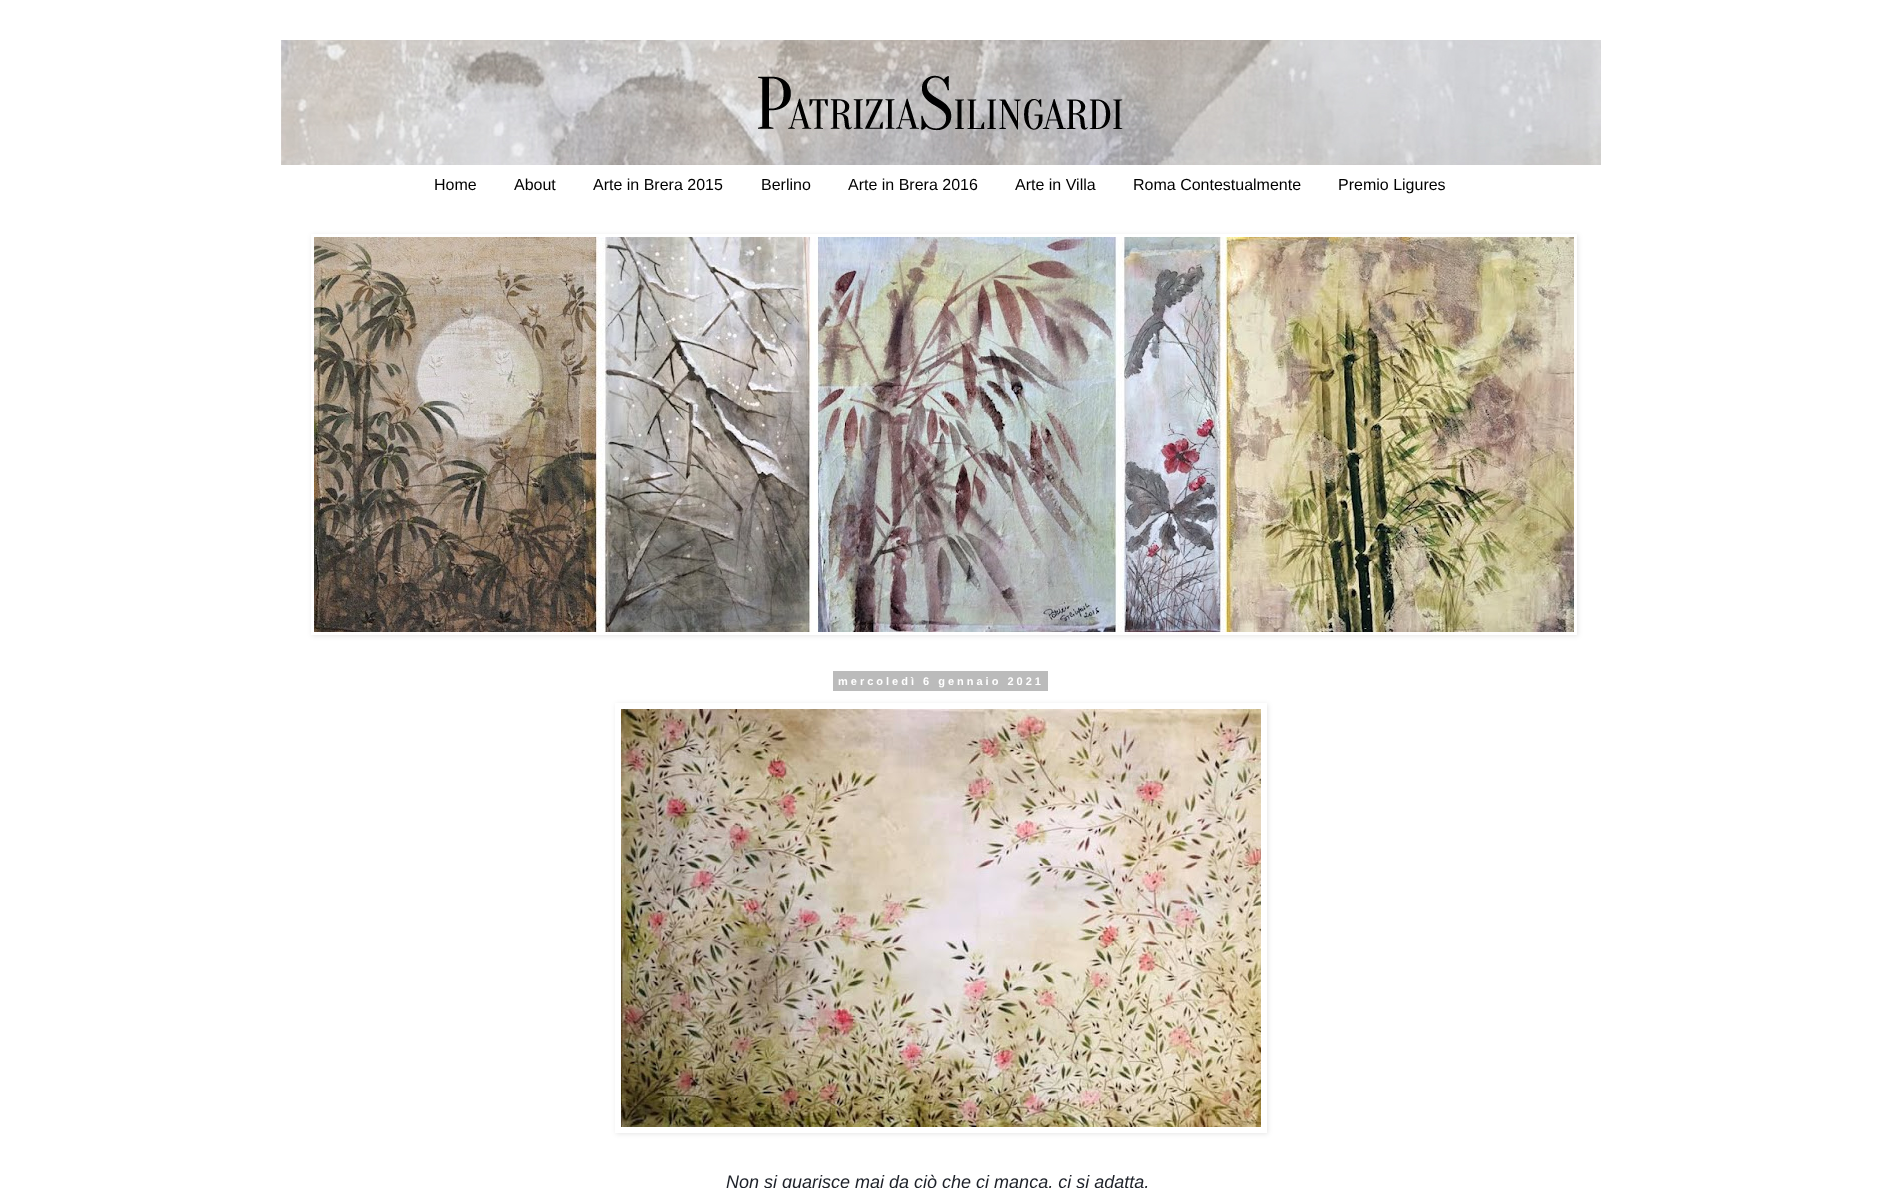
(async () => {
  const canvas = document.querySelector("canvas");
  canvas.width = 1881;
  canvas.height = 1188;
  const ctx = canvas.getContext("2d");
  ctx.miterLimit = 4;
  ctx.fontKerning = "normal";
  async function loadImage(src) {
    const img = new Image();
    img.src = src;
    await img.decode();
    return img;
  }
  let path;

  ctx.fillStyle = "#ffffff";
  ctx.fillRect(0, 0, 1881, 1188);
  ctx.drawImage(await loadImage("img/1.png"), 281, 40, 1320, 125);
  ctx.save();
  path = new Path2D("M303 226H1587V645H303ZM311 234H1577V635H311Z");
  ctx.clip(path, "evenodd");
  ctx.fillStyle = "rgba(0, 0, 0, 0.1)";
  ctx.filter = "blur(2.5px)";
  ctx.beginPath();
  ctx.rect(312, 235, 1266, 401);
  ctx.fill();
  ctx.filter = "none";
  ctx.restore();
  ctx.drawImage(await loadImage("img/2.png"), 314, 237, 1260, 395);
  ctx.fillStyle = "#bbbbbb";
  ctx.fillRect(833, 671, 215, 20);
  ctx.save();
  path = new Path2D("M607 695H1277V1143H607ZM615 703H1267V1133H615Z");
  ctx.clip(path, "evenodd");
  ctx.fillStyle = "rgba(0, 0, 0, 0.1)";
  ctx.filter = "blur(2.5px)";
  ctx.beginPath();
  ctx.rect(616, 704, 652, 430);
  ctx.fill();
  ctx.filter = "none";
  ctx.restore();
  ctx.drawImage(await loadImage("img/3.png"), 621, 709, 640, 418);
  ctx.font = "16px Liberation Sans";
  ctx.fillStyle = "#000000";
  for (const [text, x, y] of [
    ["Home", 434, 190],
    ["About", 514, 190],
    ["Arte in Brera 2015", 593, 190],
    ["Berlino", 761, 190],
    ["Arte in Brera 2016", 848, 190],
    ["Arte in Villa", 1015, 190],
    ["Roma Contestualmente", 1133, 190],
    ["Premio Ligures", 1338, 190],
  ]) {
    ctx.fillText(text, x, y);
  }
  ctx.letterSpacing = "3px";
  ctx.font = "bold 11px Liberation Sans";
  ctx.fillStyle = "#ffffff";
  ctx.fillText("mercoledì 6 gennaio 2021", 838, 685);
  ctx.letterSpacing = "0px";
  ctx.font = "italic 18px Liberation Sans";
  ctx.fillStyle = "#1d2129";
  ctx.fillText("Non si guarisce mai da ciò che ci manca, ci si adatta,", 726, 1188);
})();
